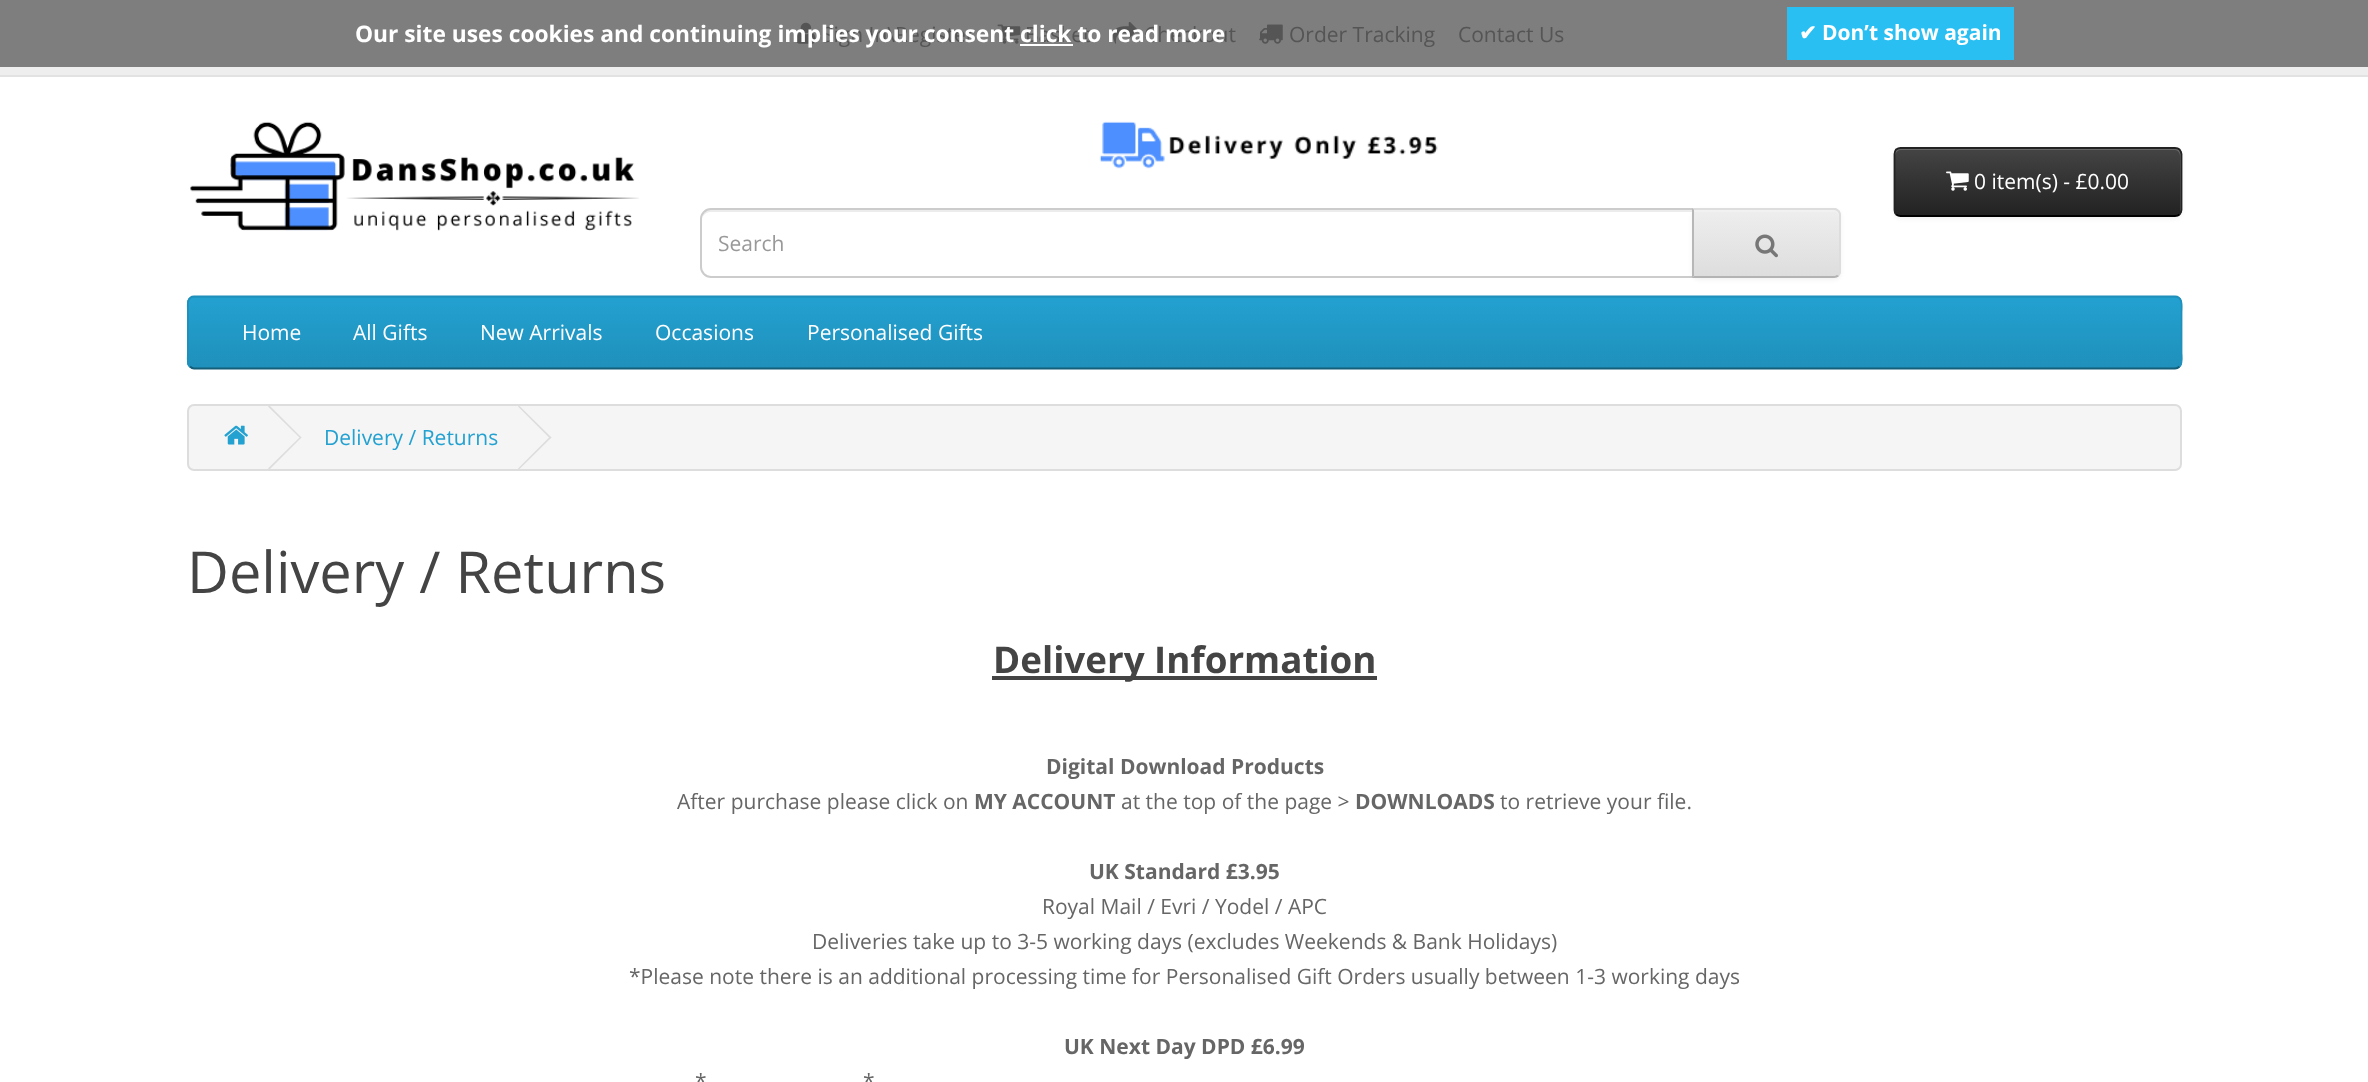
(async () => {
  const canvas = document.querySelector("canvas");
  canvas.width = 2368;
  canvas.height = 1082;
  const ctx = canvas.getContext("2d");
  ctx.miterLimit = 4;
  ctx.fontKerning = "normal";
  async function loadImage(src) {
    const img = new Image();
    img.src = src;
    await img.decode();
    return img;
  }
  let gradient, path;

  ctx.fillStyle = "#ffffff";
  ctx.fillRect(0, 0, 2368, 1082);
  for (const [x, y, w, h, color] of [
    [0, 0, 2368, 67, "#7e7e7e"],
    [1787, 7, 227, 53, "#2abff2"],
    [1020, 44, 53, 2, "#ffffff"],
    [0, 67, 2368, 8, "#eeeeee"],
    [0, 75, 2368, 2, "#e2e2e2"],
  ]) {
    ctx.fillStyle = color;
    ctx.fillRect(x, y, w, h);
  }
  ctx.drawImage(await loadImage("img/1.png"), 796, 22, 20, 22);
  ctx.drawImage(await loadImage("img/2.png"), 997, 24, 24, 20);
  ctx.drawImage(await loadImage("img/3.png"), 1113, 22, 25, 22);
  ctx.drawImage(await loadImage("img/4.png"), 1259, 24, 24, 20);
  ctx.drawImage(await loadImage("img/5.png"), 190, 121, 449, 110);
  ctx.fillStyle = "rgba(0, 0, 0, 0.05)";
  ctx.filter = "blur(2px)";
  ctx.beginPath();
  ctx.roundRect(1894, 149, 288, 70, 7);
  ctx.fill();
  ctx.filter = "none";
  ctx.save();
  ctx.beginPath();
  ctx.roundRect(1894, 147, 288, 70, 7);
  ctx.clip();
  gradient = ctx.createLinearGradient(2038, 149, 2038, 215);
  gradient.addColorStop(0, "#444444");
  gradient.addColorStop(1, "#222222");
  ctx.fillStyle = gradient;
  ctx.fillRect(1894, 149, 288, 66);
  ctx.restore();
  ctx.fillStyle = "rgba(255, 255, 255, 0.2)";
  path = new Path2D("M1900 150H2175C2178 150 2180 153 2180 156V213C2181 212 2181 211 2181 210V154C2181 151 2179 149 2176 149H1900C1897 149 1895 151 1895 154V156C1895 153 1898 150 1900 150Z");
  ctx.fill(path);
  path = new Path2D("M2179.5 214.5C2178.5 215.5 2177 216 2175 216H1900.5C1899 216 1897.5 215.5 1896 214.5");
  ctx.strokeStyle = "#000000";
  ctx.lineWidth = 1.8;
  ctx.stroke(path);
  path = new Path2D("M1896 214.5C1895 213 1894.5 211.5 1894.5 210V154C1894.5 152.5 1895 151 1896 149.5C1897.5 148.5 1899 148 1900.5 148H2175C2177 148 2178.5 148.5 2179.5 149.5C2180.5 151 2181.5 152.5 2181.5 154V210C2181.5 211.5 2180.5 213 2179.5 214.5");
  ctx.strokeStyle = "#222222";
  ctx.stroke(path);
  ctx.drawImage(await loadImage("img/6.png"), 1946, 171, 23, 20);
  ctx.drawImage(await loadImage("img/7.png"), 1099, 121, 339, 48);
  ctx.fillStyle = "#ececec";
  path = new Path2D("M710 212H1692V210H711C705 210 702 215 702 220C702 216 706 212 710 212Z");
  ctx.fill(path);
  ctx.beginPath();
  ctx.roundRect(701, 209, 992, 68, [10, 0, 0, 10]);
  ctx.strokeStyle = "#cccccc";
  ctx.lineWidth = 2;
  ctx.stroke();
  ctx.fillStyle = "rgba(0, 0, 0, 0.05)";
  ctx.filter = "blur(2px)";
  ctx.beginPath();
  ctx.roundRect(1692, 210, 149, 70, 7);
  ctx.fill();
  ctx.filter = "none";
  ctx.save();
  ctx.beginPath();
  ctx.roundRect(1692, 208, 149, 70, [0, 7, 7, 0]);
  ctx.clip();
  gradient = ctx.createLinearGradient(1767, 210, 1767, 277);
  gradient.addColorStop(0, "#eeeeee");
  gradient.addColorStop(1, "#dddddd");
  ctx.fillStyle = gradient;
  ctx.fillRect(1693, 210, 148, 67);
  ctx.restore();
  ctx.fillStyle = "#f1f1f1";
  path = new Path2D("M1694 212H1834C1837 212 1839 214 1839 217V215C1839 212 1837 210 1834 210H1694Z");
  ctx.fill(path);
  ctx.fillStyle = "#dddddd";
  path = new Path2D("M1694 210L1692 208H1836L1839 210L1838 212C1837 211 1836 210 1834 210Z");
  ctx.fill(path);
  path = new Path2D("M1841 271V215C1841 213 1840 211 1839 210L1838 212L1839 214V272L1837 275L1839 276C1840 275 1841 273 1841 271Z");
  ctx.fill(path);
  ctx.fillStyle = "#b3b3b3";
  path = new Path2D("M1839 276C1838 277 1836 278 1834 278H1692L1694 276H1835L1837 275Z");
  ctx.fill(path);
  ctx.fillStyle = "#b7b7b7";
  path = new Path2D("M1694 210V276L1692 278V208Z");
  ctx.fill(path);
  ctx.drawImage(await loadImage("img/8.png"), 1755, 234, 23, 24);
  ctx.fillStyle = "#229ac8";
  ctx.beginPath();
  ctx.roundRect(187, 296, 1995, 73, 7);
  ctx.fill();
  ctx.save();
  ctx.beginPath();
  ctx.roundRect(187, 296, 1995, 73, 7);
  ctx.clip();
  gradient = ctx.createLinearGradient(1185, 297, 1185, 368);
  gradient.addColorStop(0, "#23a1d1");
  gradient.addColorStop(1, "#1f90bb");
  ctx.fillStyle = gradient;
  ctx.fillRect(187, 298, 1995, 70);
  ctx.restore();
  path = new Path2D("M2179.5 366.5C2178.5 367.5 2177 368.5 2175 368.5H194C192.5 368.5 191 367.5 190 366.5");
  ctx.strokeStyle = "#145e7a";
  ctx.lineWidth = 1.8;
  ctx.stroke(path);
  path = new Path2D("M190 366.5C186.5 363 188 355.5 188 352.5V312.5C188 308 186 296.5 194 296.5H2175C2183.5 296.5 2181.5 308 2181.5 312.5V352.5C2181.5 355.5 2183 363 2179.5 366.5");
  ctx.strokeStyle = "#1f90bb";
  ctx.stroke(path);
  ctx.fillStyle = "#f5f5f5";
  ctx.beginPath();
  ctx.roundRect(188, 405, 1993, 65, 6);
  ctx.fill();
  ctx.strokeStyle = "#dddddd";
  ctx.lineWidth = 2;
  ctx.stroke();
  ctx.drawImage(await loadImage("img/9.png"), 224, 425, 24, 20);
  ctx.fillStyle = "#dddddd";
  path = new Path2D("M268 406.5L269.5 405.5L301.5 437.5L300.5 438.5Z");
  ctx.fill(path);
  path = new Path2D("M268 468.5L300.5 436.5L301.5 437.5L269.5 469.5Z");
  ctx.fill(path);
  path = new Path2D("M518 406.5L519 405.5L551.5 437.5L550 438.5Z");
  ctx.fill(path);
  path = new Path2D("M518 468.5L550 436.5L551.5 437.5L519 469.5Z");
  ctx.fill(path);
  ctx.fillStyle = "#444444";
  ctx.fillRect(992, 676, 385, 4);
  ctx.font = "bold 21px DejaVu Sans";
  ctx.fillStyle = "#ffffff";
  ctx.fillText("✔", 1799, 40);
  ctx.font = "bold 21px Open Sans";
  ctx.fillText("Don’t show again", 1822, 40);
  ctx.font = "21px Open Sans";
  ctx.fillStyle = "#555555";
  for (const [text, x, y] of [
    ["Sign In\\Register", 822, 42],
    ["Basket", 1025, 42],
    ["Checkout", 1144, 42],
  ]) {
    ctx.fillText(text, x, y);
  }
  ctx.font = "bold 22.75px Open Sans";
  ctx.fillStyle = "#ffffff";
  ctx.fillText("Our site uses cookies and continuing implies your consent click to read more", 355, 42);
  ctx.font = "21px Open Sans";
  ctx.fillStyle = "#555555";
  ctx.fillText("Order Tracking", 1289, 42);
  ctx.fillText("Contact Us", 1458, 42);
  ctx.fillStyle = "#ffffff";
  ctx.fillText("0 item(s) - £0.00", 1974, 189);
  ctx.fillStyle = "#999999";
  ctx.fillText("Search", 718, 251);
  ctx.fillStyle = "#ffffff";
  for (const [text, x, y] of [
    ["Home", 242, 340],
    ["All Gifts", 353, 340],
    ["New Arrivals", 480, 340],
    ["Occasions", 655, 340],
    ["Personalised Gifts", 807, 340],
  ]) {
    ctx.fillText(text, x, y);
  }
  ctx.fillStyle = "#23a1d1";
  ctx.fillText("Delivery / Returns", 324, 445);
  ctx.font = "57.75px Open Sans";
  ctx.fillStyle = "#444444";
  ctx.fillText("Delivery / Returns", 187, 593);
  ctx.font = "bold 36.75px Open Sans";
  ctx.fillText("Delivery Information", 993, 673);
  ctx.font = "bold 21px Open Sans";
  ctx.fillStyle = "#666666";
  ctx.fillText("Digital Download Products", 1046, 774);
  ctx.font = "21px Open Sans";
  ctx.fillText("After purchase please click on", 677, 809);
  ctx.font = "bold 21px Open Sans";
  ctx.fillText("MY ACCOUNT", 974, 809);
  ctx.font = "21px Open Sans";
  ctx.fillText("at the top of the page >", 1121, 809);
  ctx.font = "bold 21px Open Sans";
  ctx.fillText("DOWNLOADS", 1355, 809);
  ctx.font = "21px Open Sans";
  ctx.fillText("to retrieve your file.", 1500, 809);
  ctx.font = "bold 21px Open Sans";
  ctx.fillText("UK Standard £3.95", 1089, 879);
  ctx.font = "21px Open Sans";
  for (const [text, x, y] of [
    ["Royal Mail / Evri / Yodel / APC", 1042, 914],
    ["Deliveries take up to 3-5 working days (excludes Weekends & Bank Holidays)", 812, 949],
    ["*Please note there is an additional processing time for Personalised Gift Orders usually between 1-3 working days", 629, 984],
  ]) {
    ctx.fillText(text, x, y);
  }
  ctx.font = "bold 21px Open Sans";
  ctx.fillText("UK Next Day DPD £6.99", 1064, 1054);
  ctx.font = "21px Open Sans";
  ctx.fillText("*", 695, 1089);
  ctx.fillText("*", 863, 1089);
})();
